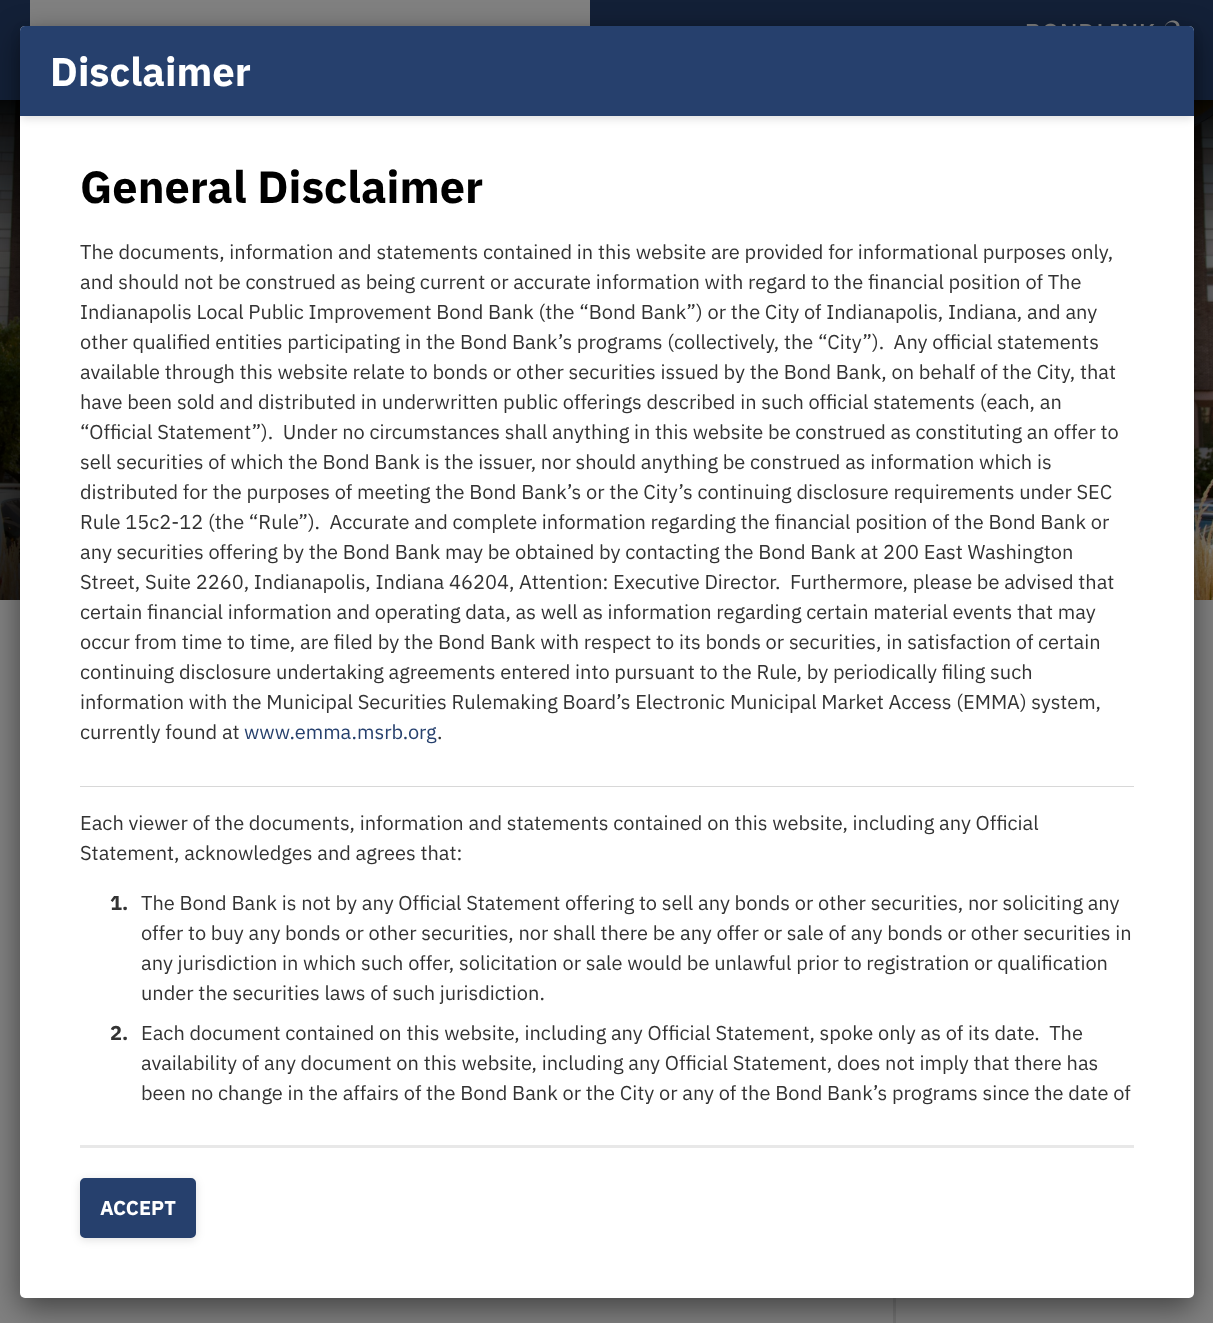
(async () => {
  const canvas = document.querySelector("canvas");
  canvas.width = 1213;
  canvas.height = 1323;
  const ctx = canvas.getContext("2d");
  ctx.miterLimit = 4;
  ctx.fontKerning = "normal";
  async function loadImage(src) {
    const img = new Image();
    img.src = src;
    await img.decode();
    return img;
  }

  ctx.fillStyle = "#808080";
  ctx.fillRect(0, 0, 1213, 1323);
  ctx.fillStyle = "#132037";
  ctx.fillRect(0, 0, 1213, 100);
  ctx.fillStyle = "#808080";
  ctx.fillRect(30, 0, 560, 26);
  ctx.drawImage(await loadImage("img/1.png"), 1026, 20, 154, 6);
  ctx.drawImage(await loadImage("img/2.png"), 0, 100, 1213, 500);
  ctx.fillStyle = "#747474";
  ctx.fillRect(893, 1298, 3, 25);
  ctx.fillStyle = "rgba(0, 0, 0, 0.48)";
  ctx.filter = "blur(15px)";
  ctx.beginPath();
  ctx.roundRect(20, 36, 1174, 1272, 5);
  ctx.fill();
  ctx.filter = "none";
  ctx.fillStyle = "#ffffff";
  ctx.beginPath();
  ctx.roundRect(20, 26, 1174, 1272, 5);
  ctx.fill();
  ctx.fillStyle = "rgba(0, 0, 0, 0.12)";
  ctx.filter = "blur(4px)";
  ctx.beginPath();
  ctx.roundRect(20, 29, 1174, 90, 5);
  ctx.fill();
  ctx.filter = "none";
  ctx.fillStyle = "#26406d";
  ctx.beginPath();
  ctx.roundRect(20, 26, 1174, 90, [5, 5, 0, 0]);
  ctx.fill();
  ctx.fillStyle = "#d8d8d8";
  ctx.fillRect(80, 786, 1054, 1);
  ctx.fillStyle = "#e8e8e8";
  ctx.fillRect(80, 1145, 1054, 3);
  ctx.fillStyle = "rgba(0, 0, 0, 0.12)";
  ctx.filter = "blur(4px)";
  ctx.beginPath();
  ctx.roundRect(80, 1180, 116, 60, 5);
  ctx.fill();
  ctx.filter = "none";
  ctx.fillStyle = "#26406d";
  ctx.beginPath();
  ctx.roundRect(81.5, 1179.5, 113, 57, 3.5);
  ctx.fill();
  ctx.strokeStyle = "#26406d";
  ctx.lineWidth = 3;
  ctx.stroke();
  ctx.font = "bold 40px IBM Plex Sans";
  ctx.fillStyle = "#ffffff";
  ctx.fillText("Disclaimer", 50, 86);
  ctx.font = "bold 45px IBM Plex Sans";
  ctx.fillStyle = "#000000";
  ctx.fillText("General Disclaimer", 80, 203);
  ctx.font = "20px IBM Plex Sans";
  ctx.fillStyle = "#333333";
  for (const [text, x, y] of [
    ["The documents, information and statements contained in this website are provided for informational purposes only,", 80, 259],
    ["and should not be construed as being current or accurate information with regard to the financial position of The", 80, 289],
    ["Indianapolis Local Public Improvement Bond Bank (the “Bond Bank”) or the City of Indianapolis, Indiana, and any", 80, 319],
    ["other qualified entities participating in the Bond Bank’s programs (collectively, the “City”).  Any official statements", 80, 349],
    ["available through this website relate to bonds or other securities issued by the Bond Bank, on behalf of the City, that", 80, 379],
    ["have been sold and distributed in underwritten public offerings described in such official statements (each, an", 80, 409],
    ["“Official Statement”).  Under no circumstances shall anything in this website be construed as constituting an offer to", 80, 439],
    ["sell securities of which the Bond Bank is the issuer, nor should anything be construed as information which is", 80, 469],
    ["distributed for the purposes of meeting the Bond Bank’s or the City’s continuing disclosure requirements under SEC", 80, 499],
    ["Rule 15c2-12 (the “Rule”).  Accurate and complete information regarding the financial position of the Bond Bank or", 80, 529],
    ["any securities offering by the Bond Bank may be obtained by contacting the Bond Bank at 200 East Washington", 80, 559],
    ["Street, Suite 2260, Indianapolis, Indiana 46204, Attention: Executive Director.  Furthermore, please be advised that", 80, 589],
    ["certain financial information and operating data, as well as information regarding certain material events that may", 80, 619],
    ["occur from time to time, are filed by the Bond Bank with respect to its bonds or securities, in satisfaction of certain", 80, 649],
    ["continuing disclosure undertaking agreements entered into pursuant to the Rule, by periodically filing such", 80, 679],
    ["information with the Municipal Securities Rulemaking Board’s Electronic Municipal Market Access (EMMA) system,", 80, 709],
    ["currently found at", 80, 739],
  ]) {
    ctx.fillText(text, x, y);
  }
  ctx.fillStyle = "#26406d";
  ctx.fillText("www.emma.msrb.org", 244, 739);
  ctx.fillStyle = "#333333";
  for (const [text, x, y] of [
    [".", 437, 739],
    ["Each viewer of the documents, information and statements contained on this website, including any Official", 80, 830],
    ["Statement, acknowledges and agrees that:", 80, 860],
  ]) {
    ctx.fillText(text, x, y);
  }
  ctx.font = "bold 20px IBM Plex Sans";
  ctx.fillText("1.", 110, 910);
  ctx.font = "20px IBM Plex Sans";
  for (const [text, x, y] of [
    ["The Bond Bank is not by any Official Statement offering to sell any bonds or other securities, nor soliciting any", 141, 910],
    ["offer to buy any bonds or other securities, nor shall there be any offer or sale of any bonds or other securities in", 141, 940],
    ["any jurisdiction in which such offer, solicitation or sale would be unlawful prior to registration or qualification", 141, 970],
    ["under the securities laws of such jurisdiction.", 141, 1000],
  ]) {
    ctx.fillText(text, x, y);
  }
  ctx.font = "bold 20px IBM Plex Sans";
  ctx.fillText("2.", 110, 1040);
  ctx.font = "20px IBM Plex Sans";
  for (const [text, x, y] of [
    ["Each document contained on this website, including any Official Statement, spoke only as of its date.  The", 141, 1040],
    ["availability of any document on this website, including any Official Statement, does not imply that there has", 141, 1070],
    ["been no change in the affairs of the Bond Bank or the City or any of the Bond Bank’s programs since the date of", 141, 1100],
  ]) {
    ctx.fillText(text, x, y);
  }
  ctx.font = "bold 20px IBM Plex Sans";
  ctx.fillStyle = "#ffffff";
  ctx.fillText("ACCEPT", 100, 1215);
})();
